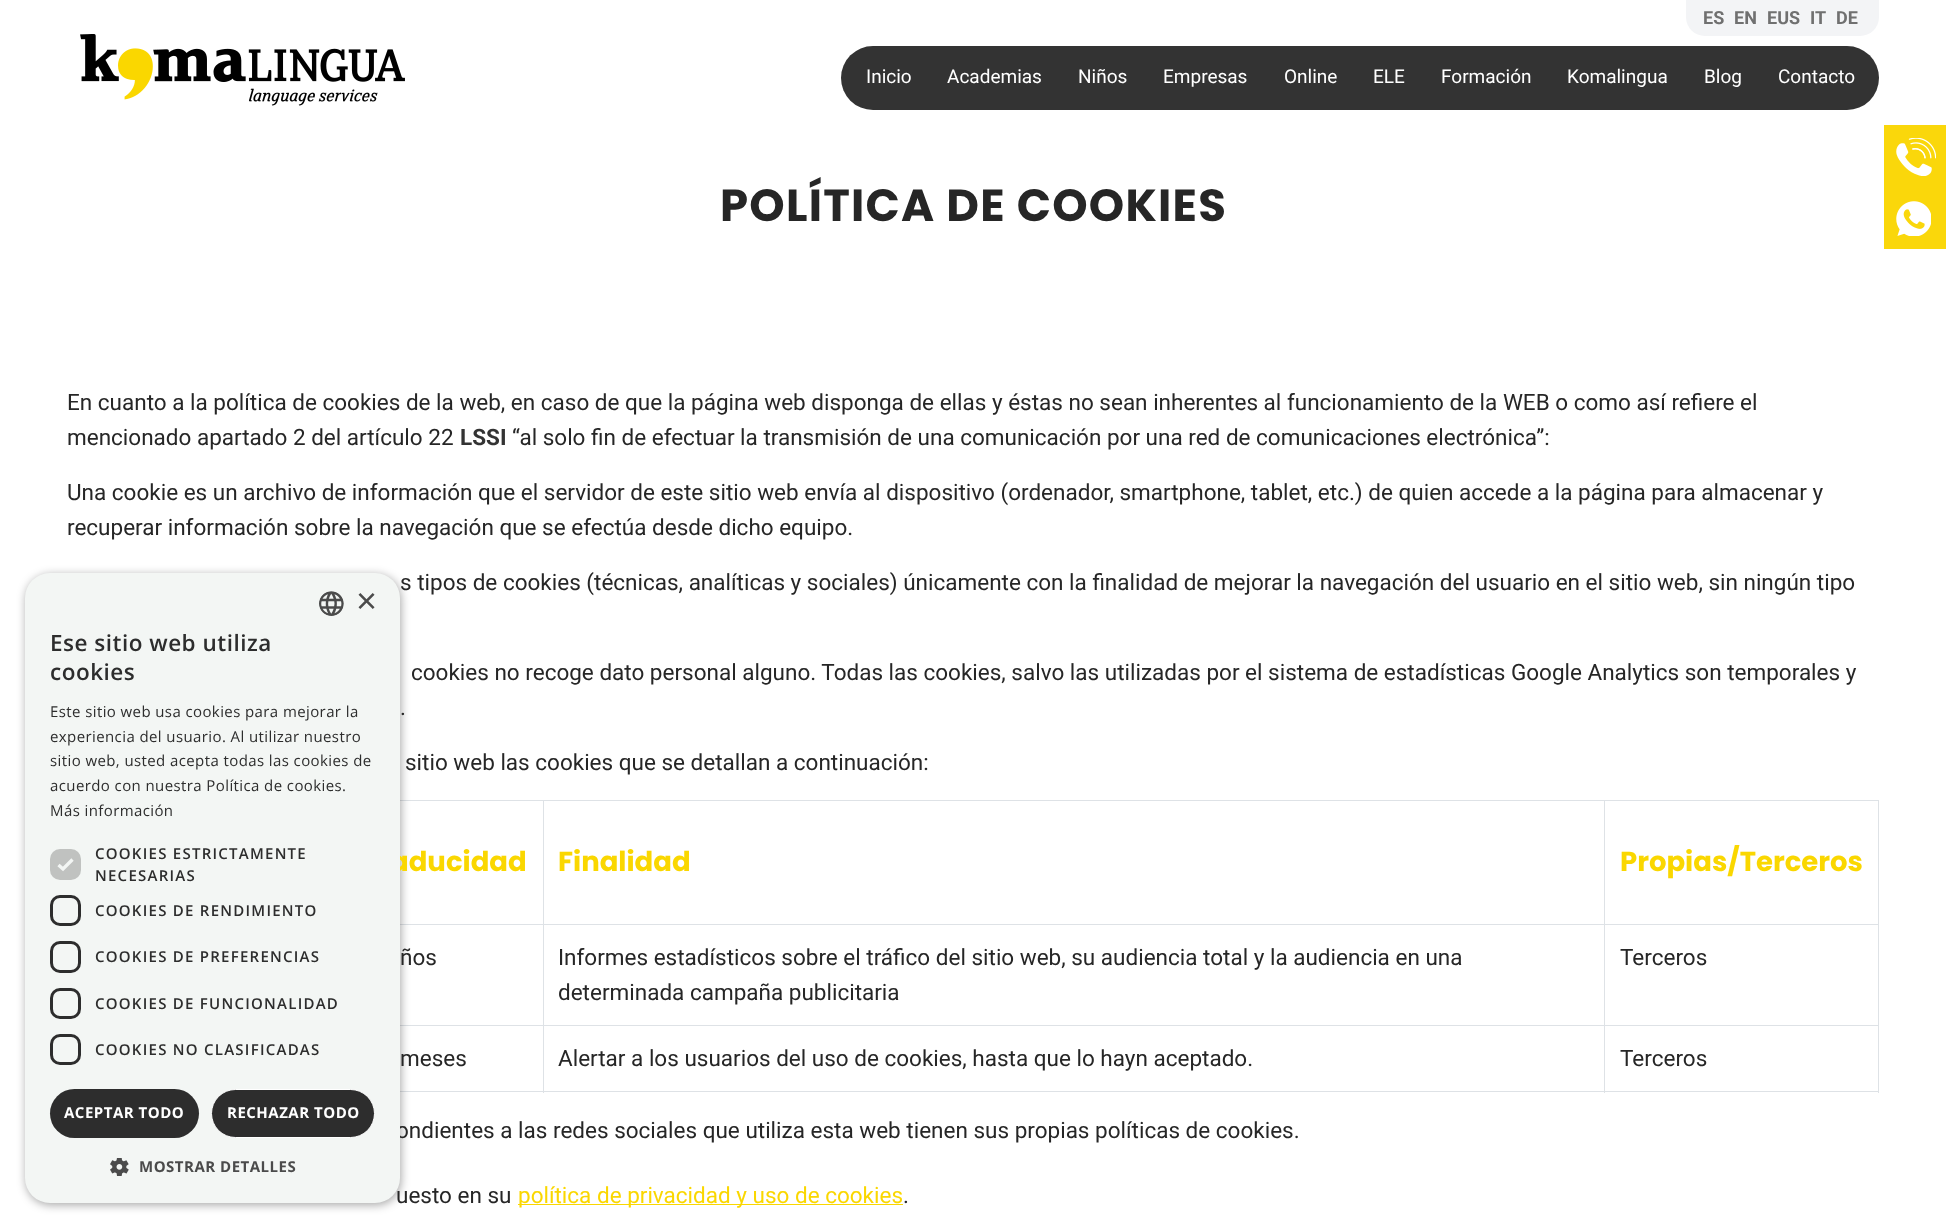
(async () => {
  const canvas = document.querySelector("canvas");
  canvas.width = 1946;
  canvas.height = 1227;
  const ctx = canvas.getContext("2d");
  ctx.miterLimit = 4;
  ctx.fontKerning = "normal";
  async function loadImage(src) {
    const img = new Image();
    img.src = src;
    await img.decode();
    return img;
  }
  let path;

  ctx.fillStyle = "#ffffff";
  ctx.fillRect(0, 0, 1946, 1227);
  ctx.fillStyle = "#f3f4f6";
  ctx.beginPath();
  ctx.roundRect(1686, 0, 193, 36, [0, 0, 19, 19]);
  ctx.fill();
  ctx.drawImage(await loadImage("img/1.png"), 80, 34, 325, 72);
  ctx.fillStyle = "#333333";
  ctx.beginPath();
  ctx.roundRect(841, 46, 1038, 64, 32);
  ctx.fill();
  for (const [x, y, w, h, color] of [
    [1604, 800, 275, 1, "#dee2e6"],
    [1604, 924, 275, 1, "#dee2e6"],
    [1604, 1025, 275, 1, "#dee2e6"],
    [1878, 1025, 1, 68, "#dee2e6"],
    [1604, 1091, 275, 1, "#dee2e6"],
    [1604, 1025, 1, 68, "#dee2e6"],
    [543, 1025, 1062, 1, "#dee2e6"],
    [1604, 924, 1, 102, "#dee2e6"],
    [543, 924, 1062, 1, "#dee2e6"],
    [1604, 800, 1, 125, "#dee2e6"],
    [543, 800, 1062, 1, "#dee2e6"],
    [543, 1091, 1062, 1, "#dee2e6"],
    [543, 1025, 1, 68, "#dee2e6"],
    [400, 1025, 144, 1, "#dee2e6"],
    [543, 924, 1, 102, "#dee2e6"],
    [400, 924, 144, 1, "#dee2e6"],
    [543, 800, 1, 125, "#dee2e6"],
    [400, 800, 144, 1, "#dee2e6"],
    [1878, 924, 1, 102, "#dee2e6"],
    [1878, 800, 1, 125, "#dee2e6"],
    [400, 1091, 144, 1, "#dee2e6"],
    [518, 1204, 385, 1, "#fad700"],
    [1884, 125, 62, 124, "#fad70b"],
  ]) {
    ctx.fillStyle = color;
    ctx.fillRect(x, y, w, h);
  }
  ctx.drawImage(await loadImage("img/2.png"), 1896, 138, 40, 38);
  ctx.drawImage(await loadImage("img/3.png"), 1896, 201, 35, 35);
  ctx.fillStyle = "rgba(0, 0, 0, 0.35)";
  ctx.filter = "blur(5px)";
  ctx.beginPath();
  ctx.roundRect(26, 575, 375, 630, 25);
  ctx.fill();
  ctx.filter = "none";
  ctx.font = "bold 18px Roboto";
  ctx.fillStyle = "#707070";
  for (const [text, x, y] of [
    ["ES", 1703, 24],
    ["EN", 1734, 24],
    ["EUS", 1767, 24],
    ["IT", 1810, 24],
    ["DE", 1836, 24],
  ]) {
    ctx.fillText(text, x, y);
  }
  ctx.font = "19px Roboto";
  ctx.fillStyle = "#ffffff";
  for (const [text, x, y] of [
    ["Inicio", 866, 83],
    ["Academias", 947, 83],
    ["Niños", 1078, 83],
    ["Empresas", 1163, 83],
    ["Online", 1284, 83],
    ["ELE", 1373, 83],
    ["Formación", 1441, 83],
    ["Komalingua", 1567, 83],
    ["Blog", 1704, 83],
    ["Contacto", 1778, 83],
  ]) {
    ctx.fillText(text, x, y);
  }
  ctx.letterSpacing = "1.25px";
  ctx.font = "bold 45px Poppins";
  ctx.fillStyle = "#262626";
  ctx.fillText("POLÍTICA DE COOKIES", 720, 221);
  ctx.letterSpacing = "0px";
  ctx.font = "22.5px Roboto";
  ctx.fillText("En cuanto a la política de cookies de la web, en caso de que la página web disponga de ellas y éstas no sean inherentes al funcionamiento de la WEB o como así refiere el", 67, 410);
  ctx.fillText("mencionado apartado 2 del artículo 22", 67, 445);
  ctx.font = "bold 22.5px Roboto";
  ctx.fillStyle = "#333333";
  ctx.fillText("LSSI", 460, 445);
  ctx.font = "22.5px Roboto";
  ctx.fillStyle = "#262626";
  for (const [text, x, y] of [
    ["“al solo fin de efectuar la transmisión de una comunicación por una red de comunicaciones electrónica”:", 512, 445],
    ["Una cookie es un archivo de información que el servidor de este sitio web envía al dispositivo (ordenador, smartphone, tablet, etc.) de quien accede a la página para almacenar y", 67, 500],
    ["recuperar información sobre la navegación que se efectúa desde dicho equipo.", 67, 535],
    ["s tipos de cookies (técnicas, analíticas y sociales) únicamente con la finalidad de mejorar la navegación del usuario en el sitio web, sin ningún tipo", 400, 590],
    ["cookies no recoge dato personal alguno. Todas las cookies, salvo las utilizadas por el sistema de estadísticas Google Analytics son temporales y", 411, 680],
    [".", 400, 715],
    ["sitio web las cookies que se detallan a continuación:", 405, 770],
  ]) {
    ctx.fillText(text, x, y);
  }
  ctx.font = "bold 27.5px Poppins";
  ctx.fillStyle = "#fad700";
  for (const [text, x, y] of [
    ["aducidad", 390, 871],
    ["Finalidad", 558, 871],
    ["Propias/Terceros", 1620, 871],
  ]) {
    ctx.fillText(text, x, y);
  }
  ctx.font = "22.5px Roboto";
  ctx.fillStyle = "#262626";
  for (const [text, x, y] of [
    ["ños", 400, 965],
    ["Informes estadísticos sobre el tráfico del sitio web, su audiencia total y la audiencia en una", 558, 965],
    ["determinada campaña publicitaria", 558, 1000],
    ["Terceros", 1620, 965],
    ["meses", 400, 1066],
    ["Alertar a los usuarios del uso de cookies, hasta que lo hayn aceptado.", 558, 1066],
    ["Terceros", 1620, 1066],
    ["ondientes a las redes sociales que utiliza esta web tienen sus propias políticas de cookies.", 396, 1138],
    ["uesto en su", 396, 1203],
  ]) {
    ctx.fillText(text, x, y);
  }
  ctx.fillStyle = "#fad700";
  ctx.fillText("política de privacidad y uso de cookies", 518, 1203);
  ctx.fillStyle = "#262626";
  ctx.fillText(".", 903, 1203);
  ctx.fillStyle = "#f3f6f4";
  ctx.beginPath();
  ctx.roundRect(25, 573, 375, 630, 25);
  ctx.fill();
  ctx.drawImage(await loadImage("img/4.png"), 319, 591, 25, 25);
  ctx.font = "36px Liberation Sans";
  ctx.fillStyle = "#4b4b4b";
  ctx.fillText("×", 356, 613);
  ctx.letterSpacing = "0.5px";
  ctx.font = "600 22.5px Open Sans";
  ctx.fillStyle = "#2d2d2d";
  ctx.fillText("Ese sitio web utiliza", 50, 651);
  ctx.fillText("cookies", 50, 680);
  ctx.letterSpacing = "0.4px";
  ctx.font = "15px Open Sans";
  for (const [text, x, y] of [
    ["Este sitio web usa cookies para mejorar la", 50, 717],
    ["experiencia del usuario. Al utilizar nuestro", 50, 742],
    ["sitio web, usted acepta todas las cookies de", 50, 766],
    ["acuerdo con nuestra Política de cookies.", 50, 791],
    ["Más información", 50, 816],
  ]) {
    ctx.fillText(text, x, y);
  }
  ctx.fillStyle = "#c0c2c0";
  ctx.beginPath();
  ctx.roundRect(50, 849, 31, 31, 10);
  ctx.fill();
  path = new Path2D("M58.5 865L63 869L72.5 859.5");
  ctx.strokeStyle = "#f3f6f4";
  ctx.lineWidth = 3.3;
  ctx.stroke(path);
  ctx.letterSpacing = "1.25px";
  ctx.font = "600 15px Open Sans";
  ctx.fillStyle = "#2d2d2d";
  ctx.fillText("COOKIES ESTRICTAMENTE", 95, 859);
  ctx.fillText("NECESARIAS", 95, 881);
  ctx.beginPath();
  ctx.roundRect(51.5, 896.5, 28, 28, 8.5);
  ctx.strokeStyle = "#2d2d2d";
  ctx.lineWidth = 3;
  ctx.stroke();
  ctx.fillText("COOKIES DE RENDIMIENTO", 95, 916);
  ctx.beginPath();
  ctx.roundRect(51.5, 942.5, 28, 29, 8.5);
  ctx.stroke();
  ctx.fillText("COOKIES DE PREFERENCIAS", 95, 962);
  ctx.beginPath();
  ctx.roundRect(51.5, 989.5, 28, 28, 8.5);
  ctx.stroke();
  ctx.fillText("COOKIES DE FUNCIONALIDAD", 95, 1009);
  ctx.beginPath();
  ctx.roundRect(51.5, 1035.5, 28, 28, 8.5);
  ctx.stroke();
  ctx.fillText("COOKIES NO CLASIFICADAS", 95, 1055);
  ctx.beginPath();
  ctx.roundRect(50, 1089, 149, 49, 24.5);
  ctx.fill();
  ctx.letterSpacing = "0.5px";
  ctx.font = "bold 15px Open Sans";
  ctx.fillStyle = "#ffffff";
  ctx.fillText("ACEPTAR TODO", 64, 1118);
  ctx.fillStyle = "#2d2d2d";
  ctx.beginPath();
  ctx.roundRect(211.5, 1089.5, 163, 48, 24);
  ctx.fill();
  ctx.strokeStyle = "#ffffff";
  ctx.lineWidth = 1;
  ctx.stroke();
  ctx.fillStyle = "#ffffff";
  ctx.fillText("RECHAZAR TODO", 227, 1118);
  ctx.drawImage(await loadImage("img/5.png"), 110, 1158, 19, 18);
  ctx.fillStyle = "#4b4b4b";
  ctx.fillText("MOSTRAR DETALLES", 139, 1172);
})();
